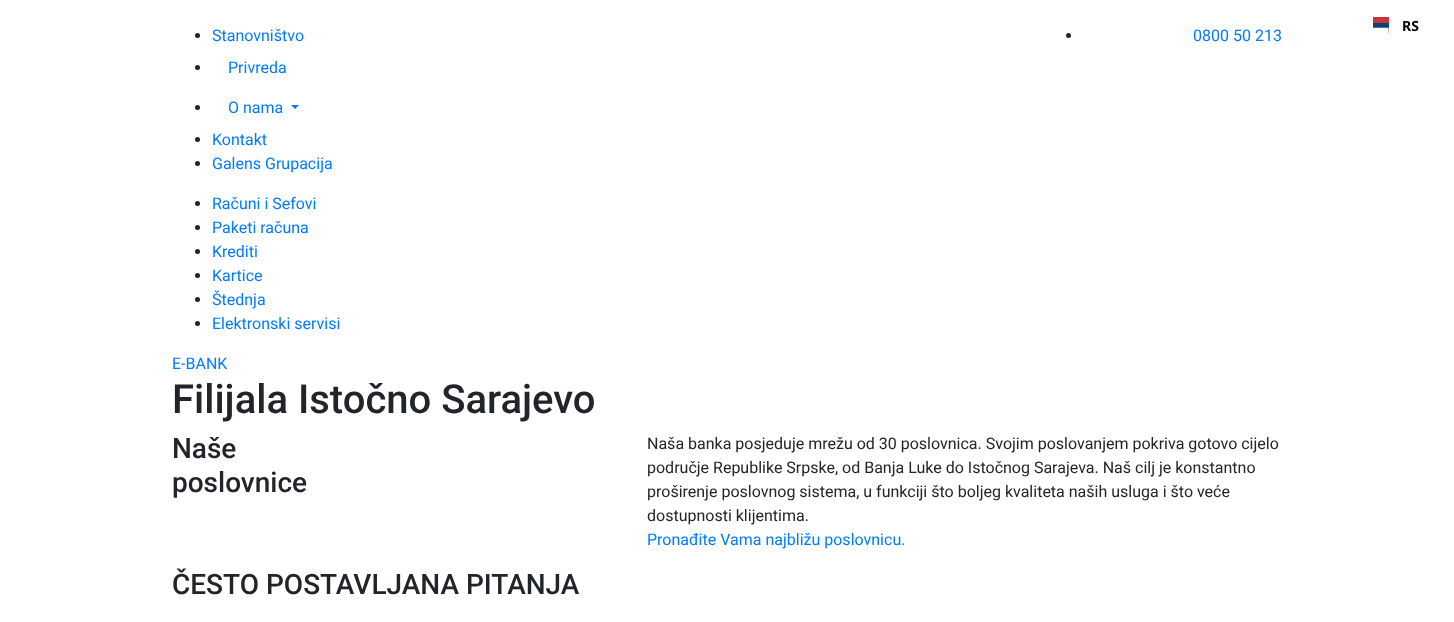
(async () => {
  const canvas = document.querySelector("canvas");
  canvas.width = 1454;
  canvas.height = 622;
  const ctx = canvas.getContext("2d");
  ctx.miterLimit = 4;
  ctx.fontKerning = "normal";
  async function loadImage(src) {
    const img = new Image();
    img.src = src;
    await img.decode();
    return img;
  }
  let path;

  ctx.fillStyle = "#ffffff";
  ctx.fillRect(0, 0, 1454, 622);
  ctx.fillStyle = "#212529";
  ctx.beginPath();
  ctx.arc(197.5, 35.5, 2.5, 0, Math.PI * 2);
  ctx.fill();
  ctx.beginPath();
  ctx.arc(197.5, 67.5, 2.5, 0, Math.PI * 2);
  ctx.fill();
  ctx.beginPath();
  ctx.arc(197.5, 107.5, 2.5, 0, Math.PI * 2);
  ctx.fill();
  ctx.fillStyle = "#007bff";
  path = new Path2D("M291 105H299L295 109Z");
  ctx.fill(path);
  ctx.fillStyle = "#212529";
  ctx.beginPath();
  ctx.arc(197.5, 139.5, 2.5, 0, Math.PI * 2);
  ctx.fill();
  ctx.beginPath();
  ctx.arc(197.5, 163.5, 2.5, 0, Math.PI * 2);
  ctx.fill();
  ctx.drawImage(await loadImage("img/1.png"), 1373, 17, 16, 16);
  ctx.beginPath();
  ctx.arc(1068.5, 35.5, 2.5, 0, Math.PI * 2);
  ctx.fill();
  ctx.beginPath();
  ctx.arc(197.5, 203.5, 2.5, 0, Math.PI * 2);
  ctx.fill();
  ctx.beginPath();
  ctx.arc(197.5, 227.5, 2.5, 0, Math.PI * 2);
  ctx.fill();
  ctx.beginPath();
  ctx.arc(197.5, 251.5, 2.5, 0, Math.PI * 2);
  ctx.fill();
  ctx.beginPath();
  ctx.arc(197.5, 275.5, 2.5, 0, Math.PI * 2);
  ctx.fill();
  ctx.beginPath();
  ctx.arc(197.5, 299.5, 2.5, 0, Math.PI * 2);
  ctx.fill();
  ctx.beginPath();
  ctx.arc(197.5, 323.5, 2.5, 0, Math.PI * 2);
  ctx.fill();
  ctx.font = "16px Roboto";
  ctx.fillStyle = "#007bff";
  for (const [text, x, y] of [
    ["Stanovništvo", 212, 41],
    ["Privreda", 228, 73],
    ["O nama", 228, 113],
    ["Kontakt", 212, 145],
    ["Galens Grupacija", 212, 169],
  ]) {
    ctx.fillText(text, x, y);
  }
  ctx.font = "bold 14px Noto Sans";
  ctx.fillStyle = "#000000";
  ctx.fillText("RS", 1402, 31);
  ctx.font = "16px Roboto";
  ctx.fillStyle = "#007bff";
  for (const [text, x, y] of [
    ["0800 50 213", 1193, 41],
    ["Računi i Sefovi", 212, 209],
    ["Paketi računa", 212, 233],
    ["Krediti", 212, 257],
    ["Kartice", 212, 281],
    ["Štednja", 212, 305],
    ["Elektronski servisi", 212, 329],
    ["Е-BANK", 172, 369],
  ]) {
    ctx.fillText(text, x, y);
  }
  ctx.font = "500 40px Roboto";
  ctx.fillStyle = "#212529";
  ctx.fillText("Filijala Istočno Sarajevo", 172, 413);
  ctx.font = "500 28px Roboto";
  ctx.fillText("Naše", 172, 458);
  ctx.fillText("poslovnice", 172, 492);
  ctx.font = "16px Roboto";
  for (const [text, x, y] of [
    ["Naša banka posjeduje mrežu od 30 poslovnica. Svojim poslovanjem pokriva gotovo cijelo", 647, 449],
    ["područje Republike Srpske, od Banja Luke do Istočnog Sarajeva. Naš cilj je konstantno", 647, 473],
    ["proširenje poslovnog sistema, u funkciji što boljeg kvaliteta naših usluga i što veće", 647, 497],
    ["dostupnosti klijentima.", 647, 521],
  ]) {
    ctx.fillText(text, x, y);
  }
  ctx.fillStyle = "#007bff";
  ctx.fillText("Pronađite Vama najbližu poslovnicu.", 647, 545);
  ctx.font = "500 28px Roboto";
  ctx.fillStyle = "#212529";
  ctx.fillText("ČESTO POSTAVLJANA PITANJA", 172, 594);
})();
